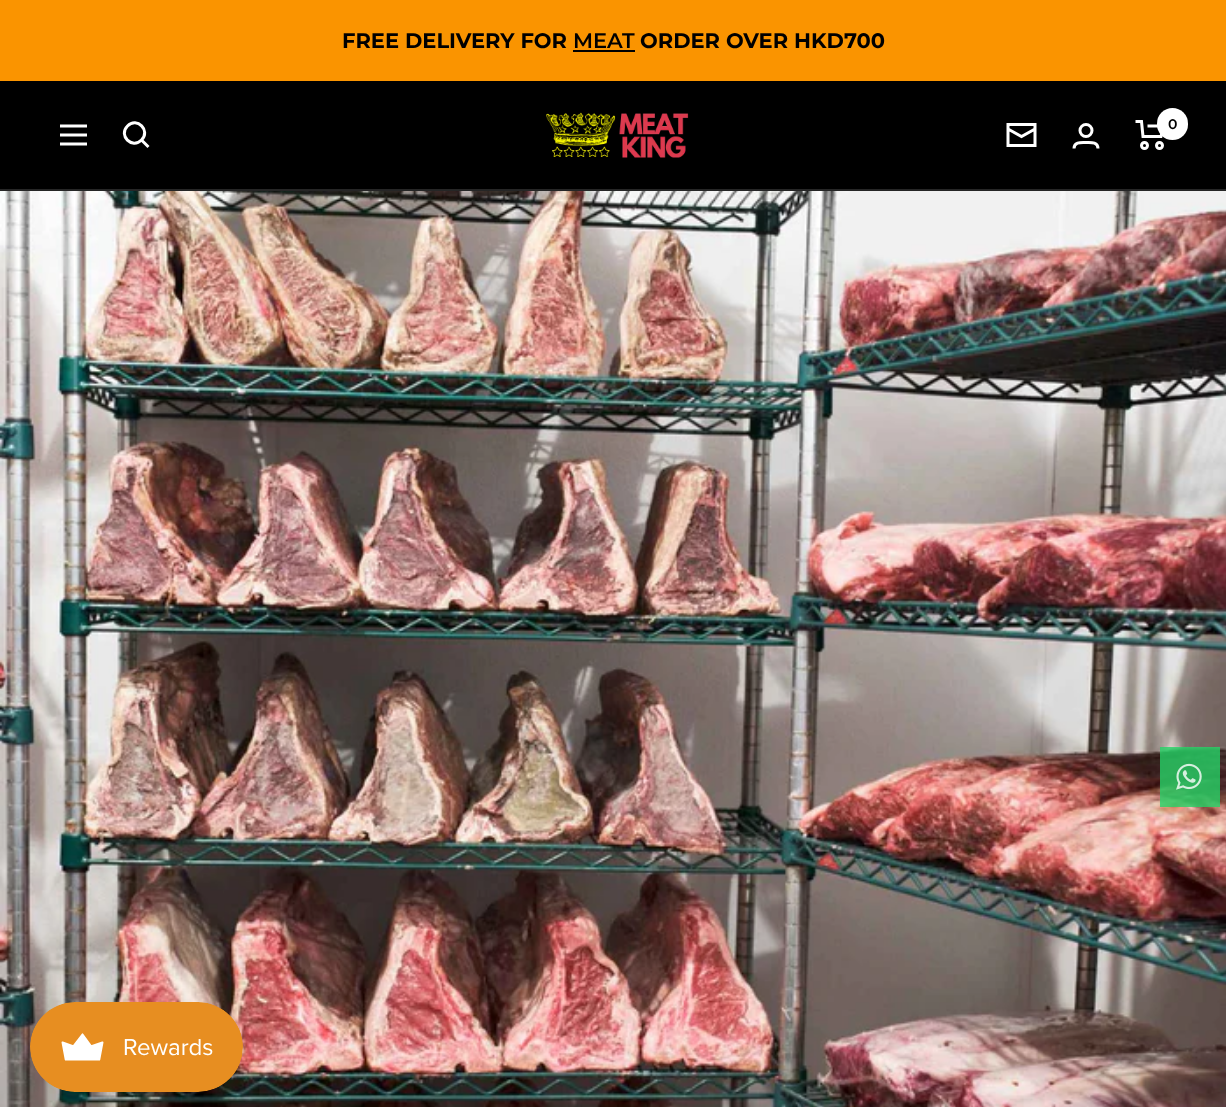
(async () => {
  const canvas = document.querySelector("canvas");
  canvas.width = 1226;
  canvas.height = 1107;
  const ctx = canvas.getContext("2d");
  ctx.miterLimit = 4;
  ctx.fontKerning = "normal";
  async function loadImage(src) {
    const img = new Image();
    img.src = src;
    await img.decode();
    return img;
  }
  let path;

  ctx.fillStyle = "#000000";
  ctx.fillRect(0, 0, 1226, 1107);
  for (const [x, y, w, h, color] of [
    [0, 0, 1226, 81, "#fa9400"],
    [573, 50, 62, 2, "#000000"],
    [0, 189, 1226, 2, "#262626"],
  ]) {
    ctx.fillStyle = color;
    ctx.fillRect(x, y, w, h);
  }
  path = new Path2D("M60 126H87M60 144H87ZM60 135H87Z");
  ctx.strokeStyle = "#ffffff";
  ctx.lineWidth = 3;
  ctx.stroke(path);
  path = new Path2D("M141.5 140C151 130.5 137 116.5 127.5 126C118 135.5 132 149.5 141.5 140ZM141.5 140L148.5 147");
  ctx.stroke(path);
  ctx.drawImage(await loadImage("img/1.png"), 546, 112, 143, 46);
  path = new Path2D("M1035 129L1021.5 136.5L1008 129M1008 124.5H1035V145.5H1008Z");
  ctx.stroke(path);
  ctx.beginPath();
  ctx.arc(1086, 130.5, 6, 0, Math.PI * 2);
  ctx.stroke();
  path = new Path2D("M1074 148.5C1074 141.5 1081.5 142.5 1086 142.5C1090.5 142.5 1098 141.5 1098 148.5");
  ctx.stroke(path);
  path = new Path2D("M1135.5 121.5H1141.5L1143 136.5H1161L1164 126H1147.5");
  ctx.stroke(path);
  ctx.beginPath();
  ctx.arc(1144.5, 145.5, 3, 0, Math.PI * 2);
  ctx.stroke();
  ctx.beginPath();
  ctx.arc(1159.5, 145.5, 3, 0, Math.PI * 2);
  ctx.stroke();
  ctx.fillStyle = "#ffffff";
  ctx.beginPath();
  ctx.roundRect(1157, 108, 31, 32, 15.5);
  ctx.fill();
  ctx.drawImage(await loadImage("img/2.png"), 0, 191, 1226, 916);
  ctx.fillStyle = "rgba(37, 211, 102, 0.8)";
  ctx.fillRect(1160, 747, 60, 60);
  ctx.drawImage(await loadImage("img/3.png"), 1176, 763, 26, 27);
  ctx.fillStyle = "rgba(0, 0, 0, 0.05)";
  ctx.filter = "blur(19px)";
  ctx.beginPath();
  ctx.roundRect(30, 1002, 213, 90, 45);
  ctx.fill();
  ctx.filter = "none";
  ctx.drawImage(await loadImage("img/4.png"), 30, 1002, 213, 90);
  ctx.font = "bold 21px Montserrat";
  ctx.fillStyle = "#000000";
  ctx.fillText("FREE DELIVERY FOR", 342, 48);
  ctx.font = "600 21px Montserrat";
  ctx.fillText("MEAT", 573, 48);
  ctx.font = "bold 21px Montserrat";
  ctx.fillText("ORDER OVER HKD700", 640, 48);
  ctx.font = "600 14px Montserrat";
  ctx.fillText("0", 1168, 129);
})();
